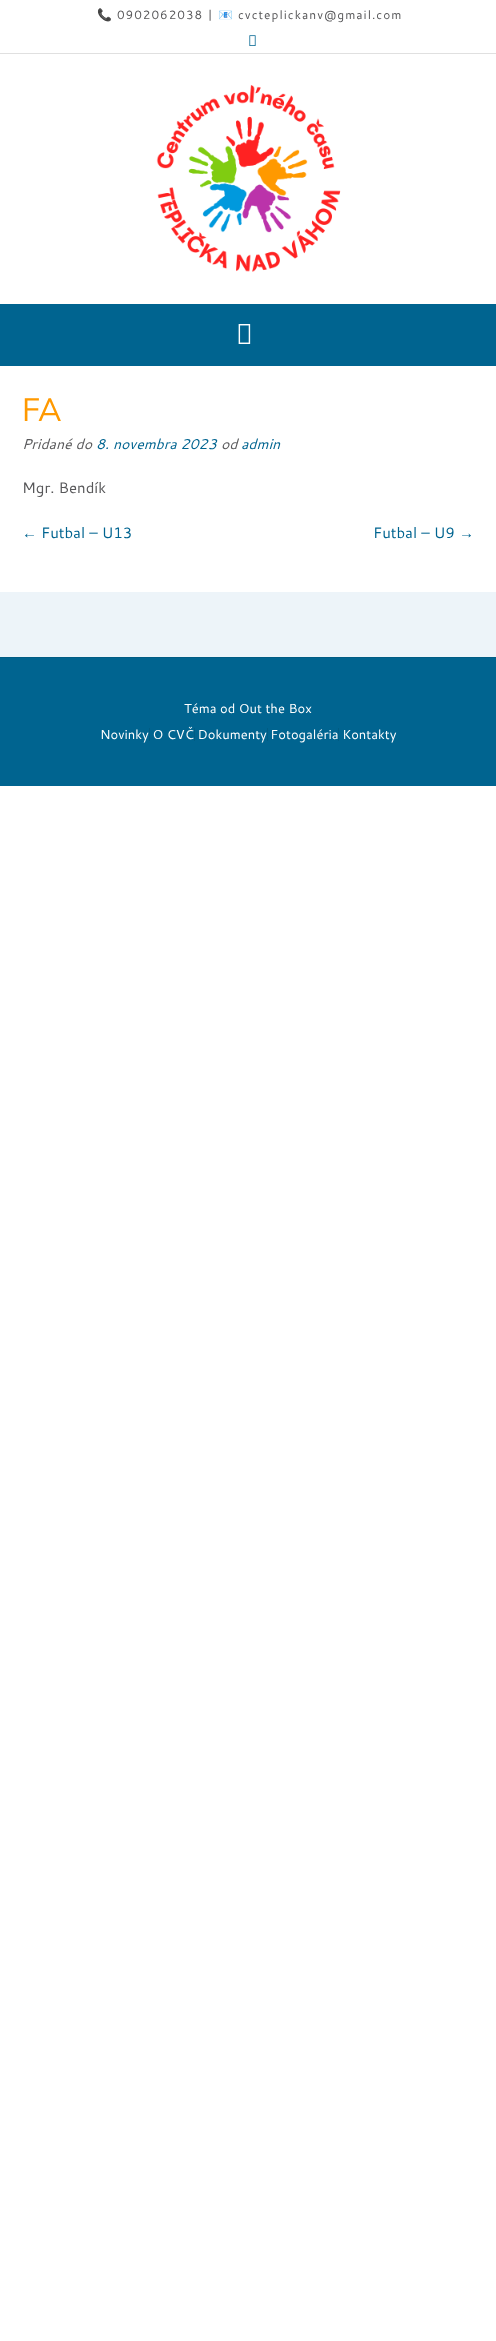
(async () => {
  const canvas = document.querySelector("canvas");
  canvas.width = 496;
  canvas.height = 2341;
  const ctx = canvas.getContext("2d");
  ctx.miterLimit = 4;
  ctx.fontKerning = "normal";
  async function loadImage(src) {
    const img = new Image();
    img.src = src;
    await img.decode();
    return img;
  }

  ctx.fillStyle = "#ffffff";
  ctx.fillRect(0, 0, 496, 2341);
  ctx.fillStyle = "#e0e0e0";
  ctx.fillRect(0, 53, 496, 1);
  ctx.drawImage(await loadImage("img/1.png"), 249, 35, 7, 11);
  ctx.drawImage(await loadImage("img/2.png"), 156, 85, 185, 187);
  ctx.fillStyle = "#006490";
  ctx.fillRect(0, 304, 496, 62);
  ctx.drawImage(await loadImage("img/3.png"), 238, 324, 13, 20);
  for (const [x, y, w, h, color] of [
    [0, 592, 496, 65, "#edf4f9"],
    [0, 658, 496, 128, "#006490"],
    [0, 657, 496, 1, "#005c84"],
    [149, 728, 1, 13, "#005c84"],
  ]) {
    ctx.fillStyle = color;
    ctx.fillRect(x, y, w, h);
  }
  ctx.letterSpacing = "1px";
  ctx.font = "12px Noto Color Emoji";
  ctx.fillStyle = "#58585a";
  ctx.fillText("📞", 97, 19);
  ctx.font = "12px Cantarell";
  ctx.fillText("0902062038 |", 117, 19);
  ctx.font = "12px Noto Color Emoji";
  ctx.fillText("📧", 218, 19);
  ctx.font = "12px Cantarell";
  ctx.fillText("cvcteplickanv@gmail.com", 238, 19);
  ctx.letterSpacing = "0px";
  ctx.font = "32px Muli";
  ctx.fillStyle = "#ff9900";
  ctx.fillText("FA", 22, 421);
  ctx.font = "italic 14.25px Cantarell";
  ctx.fillStyle = "#58585a";
  ctx.fillText("Pridané do", 22, 449);
  ctx.fillStyle = "#006490";
  ctx.fillText("8. novembra 2023", 96, 449);
  ctx.fillStyle = "#58585a";
  ctx.fillText("od", 221, 449);
  ctx.fillStyle = "#006490";
  ctx.fillText("admin", 241, 449);
  ctx.font = "15px Cantarell";
  ctx.fillStyle = "#58585a";
  ctx.fillText("Mgr. Bendík", 22, 493);
  ctx.font = "15px Liberation Sans";
  ctx.fillStyle = "#006490";
  ctx.fillText("←", 22, 538);
  ctx.font = "15px Cantarell";
  ctx.fillText("Futbal – U13", 41, 538);
  ctx.fillText("Futbal – U9", 373, 538);
  ctx.font = "15px Liberation Sans";
  ctx.fillText("→", 459, 538);
  ctx.font = "13px Cantarell";
  ctx.fillStyle = "#ffffff";
  ctx.fillText("Téma od Out the Box", 184, 713);
  ctx.fillText("Novinky O CVČ Dokumenty Fotogaléria Kontakty", 100, 739);
  for (const [x, y, w, h, color] of [
    [194, 728, 1, 13, "#005c84"],
    [267, 728, 1, 13, "#005c84"],
    [338, 728, 1, 13, "#005c84"],
  ]) {
    ctx.fillStyle = color;
    ctx.fillRect(x, y, w, h);
  }
})();
